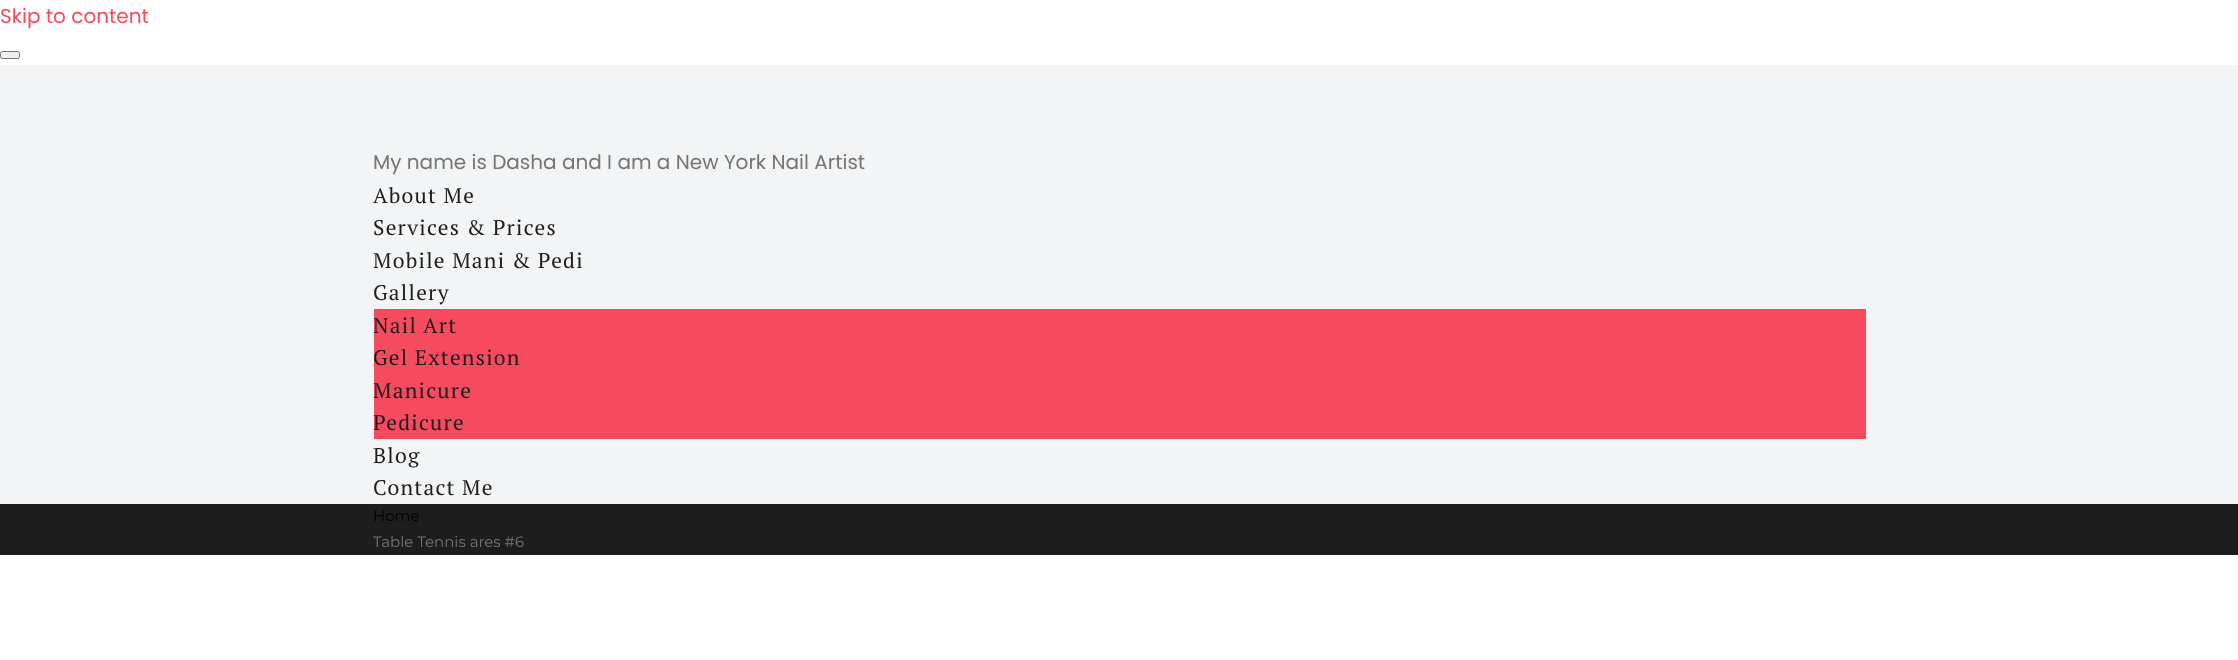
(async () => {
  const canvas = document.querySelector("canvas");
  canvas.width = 2238;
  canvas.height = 660;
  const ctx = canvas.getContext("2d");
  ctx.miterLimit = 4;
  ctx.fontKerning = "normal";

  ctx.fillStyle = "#ffffff";
  ctx.fillRect(0, 0, 2238, 660);
  ctx.fillStyle = "#efefef";
  ctx.beginPath();
  ctx.roundRect(0.5, 51.5, 19, 7, 2);
  ctx.fill();
  ctx.strokeStyle = "#767676";
  ctx.stroke();
  for (const [x, y, w, h, color] of [
    [0, 65, 2238, 439, "#f2f4f5"],
    [374, 309, 1492, 130, "#f64a5f"],
    [0, 504, 2238, 51, "#1d1d1d"],
  ]) {
    ctx.fillStyle = color;
    ctx.fillRect(x, y, w, h);
  }
  ctx.font = "20px Poppins";
  ctx.fillStyle = "#f64a5f";
  ctx.fillText("Skip to content", 0, 23);
  ctx.fillStyle = "#757575";
  ctx.fillText("My name is Dasha and I am a New York Nail Artist", 373, 169);
  ctx.letterSpacing = "1.25px";
  ctx.font = "21.25px PT Serif";
  ctx.fillStyle = "#1d1d1d";
  for (const [text, x, y] of [
    ["About Me", 373, 203],
    ["Services & Prices", 373, 235],
    ["Mobile Mani & Pedi", 373, 268],
    ["Gallery", 373, 300],
    ["Nail Art", 373, 333],
    ["Gel Extension", 373, 365],
    ["Manicure", 373, 398],
    ["Pedicure", 373, 430],
    ["Blog", 373, 463],
    ["Contact Me", 373, 495],
  ]) {
    ctx.fillText(text, x, y);
  }
  ctx.letterSpacing = "0px";
  ctx.font = "15px Montserrat";
  ctx.fillStyle = "#000000";
  ctx.fillText("Home", 373, 521);
  ctx.fillStyle = "#757575";
  ctx.fillText("Table Tennis ares #6", 373, 547);
})();
